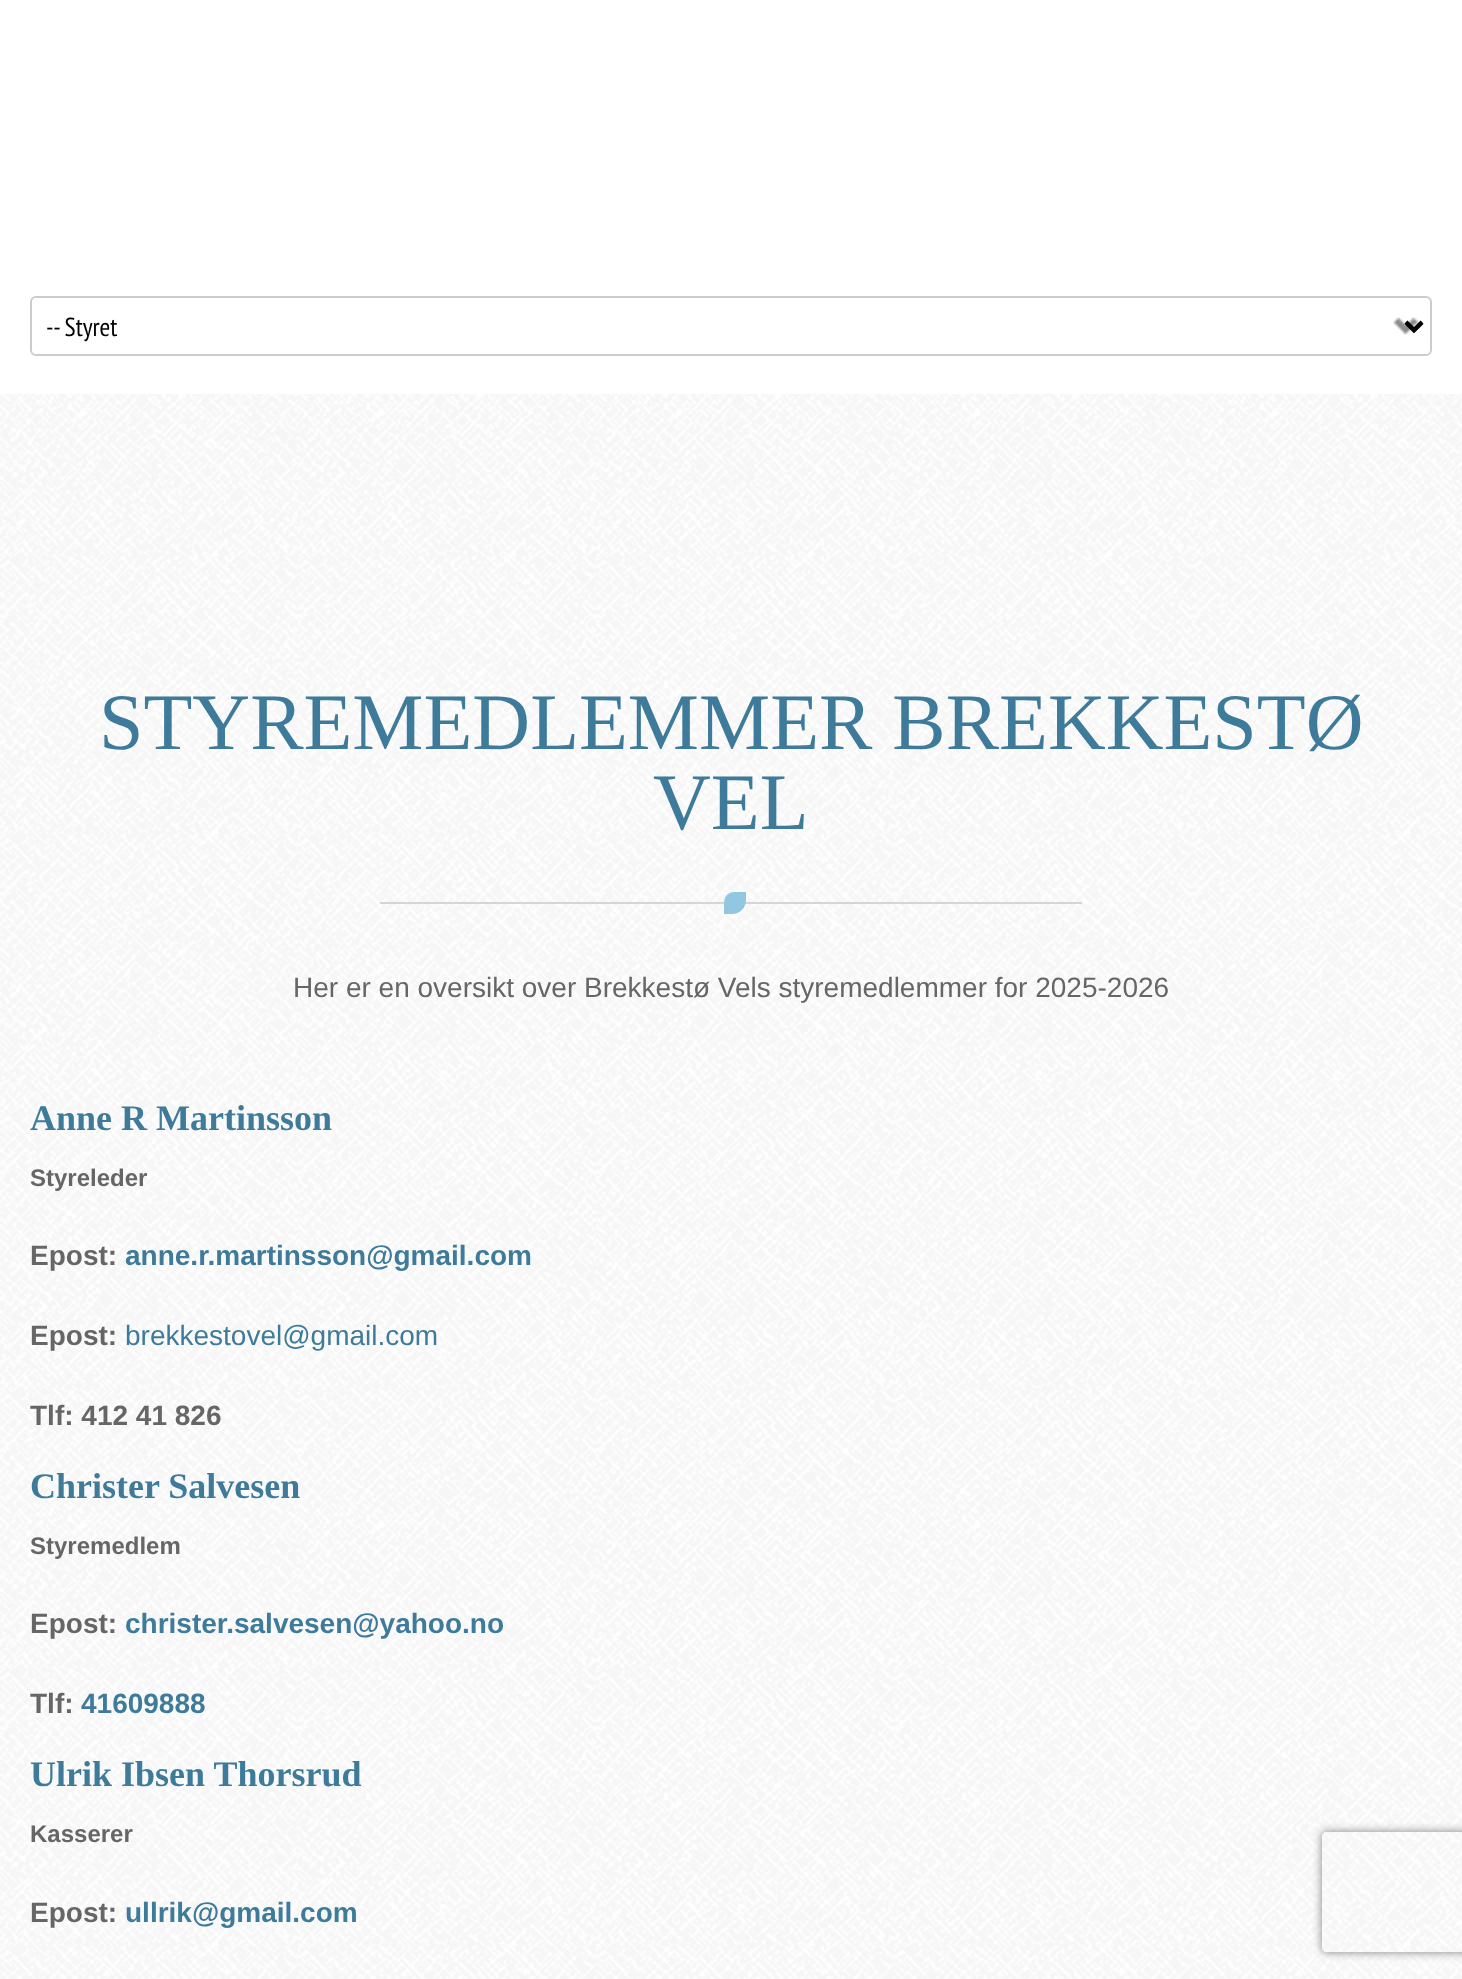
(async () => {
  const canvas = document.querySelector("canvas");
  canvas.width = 1462;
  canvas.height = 1979;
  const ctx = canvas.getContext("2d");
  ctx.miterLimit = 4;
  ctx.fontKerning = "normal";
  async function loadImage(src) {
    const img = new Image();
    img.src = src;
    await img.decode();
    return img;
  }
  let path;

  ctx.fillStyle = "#ffffff";
  ctx.fillRect(0, 0, 1462, 1979);
  ctx.drawImage(await loadImage("img/1.png"), 0, 394, 1462, 1585);
  ctx.drawImage(await loadImage("img/2.png"), 1393, 317, 31, 18);
  ctx.beginPath();
  ctx.roundRect(31, 297, 1400, 58, 5);
  ctx.strokeStyle = "#cccccc";
  ctx.lineWidth = 2;
  ctx.stroke();
  path = new Path2D("M1406 322.5L1414 330.5L1422 322.5");
  ctx.strokeStyle = "#000000";
  ctx.lineWidth = 4;
  ctx.stroke(path);
  ctx.fillStyle = "#d5d5d5";
  ctx.fillRect(380, 902, 702, 2);
  ctx.fillStyle = "#91c7e1";
  ctx.beginPath();
  ctx.roundRect(724, 892, 22, 22, [10, 0, 14, 0]);
  ctx.fill();
  ctx.save();
  path = new Path2D("M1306 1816H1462V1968H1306ZM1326 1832H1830C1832 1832 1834 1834 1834 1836V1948C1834 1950 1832 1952 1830 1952H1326C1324 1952 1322 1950 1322 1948V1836C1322 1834 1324 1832 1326 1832Z");
  ctx.clip(path, "evenodd");
  ctx.fillStyle = "#808080";
  ctx.filter = "blur(5px)";
  ctx.beginPath();
  ctx.roundRect(1322, 1832, 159, 120, 4);
  ctx.fill();
  ctx.filter = "none";
  ctx.restore();
  ctx.font = "26px PT Sans Narrow";
  ctx.fillStyle = "#000000";
  ctx.fillText("-- Styret", 46, 336);
  ctx.font = "80px Liberation Serif";
  ctx.fillStyle = "#3e7b9a";
  ctx.fillText("STYREMEDLEMMER BREKKESTØ", 99, 749);
  ctx.fillText("VEL", 653, 829);
  ctx.font = "28px Liberation Sans";
  ctx.fillStyle = "#666666";
  ctx.fillText("Her er en oversikt over Brekkestø Vels styremedlemmer for 2025-2026", 293, 997);
  ctx.font = "bold 36px Liberation Serif";
  ctx.fillStyle = "#3e7b9a";
  ctx.fillText("Anne R Martinsson", 30, 1130);
  ctx.font = "bold 24px Liberation Sans";
  ctx.fillStyle = "#666666";
  ctx.fillText("Styreleder", 30, 1186);
  ctx.font = "bold 28px Liberation Sans";
  ctx.fillText("Epost:", 30, 1265);
  ctx.fillStyle = "#3e7b9a";
  ctx.fillText("anne.r.martinsson@gmail.com", 125, 1265);
  ctx.fillStyle = "#666666";
  ctx.fillText("Epost:", 30, 1345);
  ctx.font = "28px Liberation Sans";
  ctx.fillStyle = "#3e7b9a";
  ctx.fillText("brekkestovel@gmail.com", 125, 1345);
  ctx.font = "bold 28px Liberation Sans";
  ctx.fillStyle = "#666666";
  ctx.fillText("Tlf: 412 41 826", 30, 1425);
  ctx.font = "bold 36px Liberation Serif";
  ctx.fillStyle = "#3e7b9a";
  ctx.fillText("Christer Salvesen", 30, 1498);
  ctx.font = "bold 24px Liberation Sans";
  ctx.fillStyle = "#666666";
  ctx.fillText("Styremedlem", 30, 1554);
  ctx.font = "bold 28px Liberation Sans";
  ctx.fillText("Epost:", 30, 1633);
  ctx.fillStyle = "#3e7b9a";
  ctx.fillText("christer.salvesen@yahoo.no", 125, 1633);
  ctx.fillStyle = "#666666";
  ctx.fillText("Tlf:", 30, 1713);
  ctx.fillStyle = "#3e7b9a";
  ctx.fillText("41609888", 81, 1713);
  ctx.font = "bold 36px Liberation Serif";
  ctx.fillText("Ulrik Ibsen Thorsrud", 30, 1786);
  ctx.font = "bold 24px Liberation Sans";
  ctx.fillStyle = "#666666";
  ctx.fillText("Kasserer", 30, 1842);
  ctx.font = "bold 28px Liberation Sans";
  ctx.fillText("Epost:", 30, 1922);
  ctx.fillStyle = "#3e7b9a";
  ctx.fillText("ullrik@gmail.com", 125, 1922);
})();
